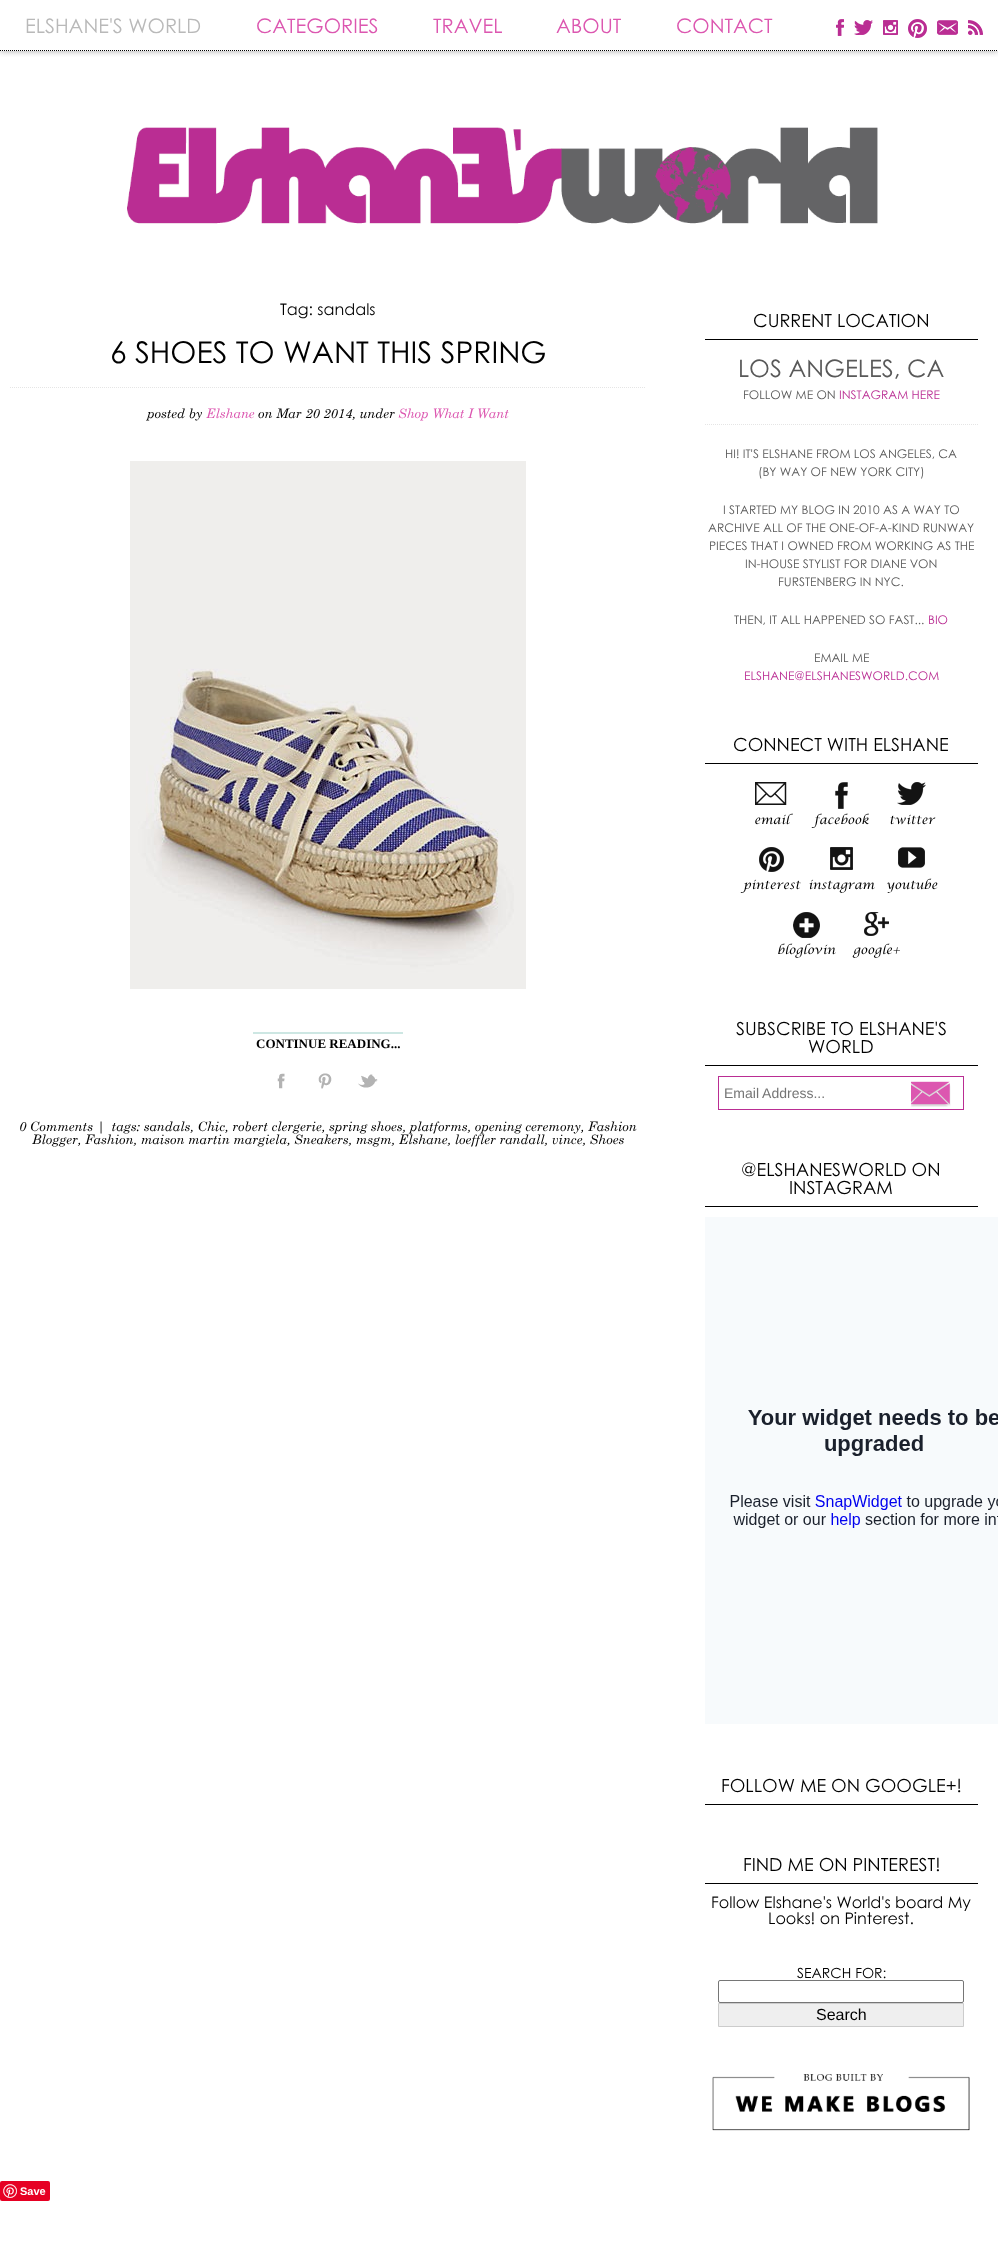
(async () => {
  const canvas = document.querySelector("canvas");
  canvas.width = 998;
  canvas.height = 2244;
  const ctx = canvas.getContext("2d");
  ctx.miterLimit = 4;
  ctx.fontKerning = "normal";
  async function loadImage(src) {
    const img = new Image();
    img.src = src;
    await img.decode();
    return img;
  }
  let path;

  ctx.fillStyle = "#ffffff";
  ctx.fillRect(0, 0, 998, 2244);
  ctx.save();
  ctx.beginPath();
  ctx.rect(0, 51, 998, 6);
  ctx.clip();
  ctx.fillStyle = "#a5a5a5";
  ctx.filter = "blur(3px)";
  ctx.beginPath();
  ctx.rect(0, 0, 998, 51);
  ctx.fill();
  ctx.filter = "none";
  ctx.restore();
  path = new Path2D("M0 50.5H998");
  ctx.strokeStyle = "#000000";
  ctx.setLineDash([1, 1]);
  ctx.stroke(path);
  ctx.drawImage(await loadImage("img/1.png"), 836, 19, 8, 17);
  ctx.drawImage(await loadImage("img/2.png"), 854, 20, 19, 15);
  ctx.drawImage(await loadImage("img/3.png"), 883, 20, 15, 15);
  ctx.drawImage(await loadImage("img/4.png"), 908, 19, 19, 19);
  ctx.drawImage(await loadImage("img/5.png"), 937, 20, 21, 15);
  ctx.drawImage(await loadImage("img/6.png"), 968, 20, 15, 15);
  ctx.drawImage(await loadImage("img/7.png"), 127, 127, 751, 97);
  path = new Path2D("M10 387.5H646");
  ctx.strokeStyle = "#e5e5e5";
  ctx.stroke(path);
  ctx.drawImage(await loadImage("img/8.png"), 130, 461, 396, 528);
  ctx.fillStyle = "#cde7e3";
  ctx.fillRect(253, 1032, 150, 2);
  ctx.drawImage(await loadImage("img/9.png"), 277, 1073, 8, 16);
  ctx.drawImage(await loadImage("img/10.png"), 318, 1073, 14, 16);
  ctx.drawImage(await loadImage("img/11.png"), 358, 1074, 20, 14);
  ctx.fillStyle = "#000000";
  ctx.fillRect(705, 339, 273, 1);
  path = new Path2D("M705 424.5H978");
  ctx.stroke(path);
  ctx.fillRect(705, 763, 273, 1);
  ctx.drawImage(await loadImage("img/12.png"), 755, 782, 32, 23);
  ctx.drawImage(await loadImage("img/13.png"), 835, 782, 13, 27);
  ctx.drawImage(await loadImage("img/14.png"), 897, 782, 29, 23);
  ctx.drawImage(await loadImage("img/15.png"), 759, 847, 25, 25);
  ctx.drawImage(await loadImage("img/16.png"), 830, 847, 23, 23);
  ctx.drawImage(await loadImage("img/17.png"), 898, 847, 27, 21);
  ctx.drawImage(await loadImage("img/18.png"), 793, 912, 27, 26);
  ctx.drawImage(await loadImage("img/19.png"), 864, 912, 25, 24);
  ctx.fillRect(705, 1065, 273, 1);
  ctx.strokeStyle = "#ba2d93";
  ctx.setLineDash([]);
  ctx.strokeRect(718.5, 1076.5, 245, 33);
  ctx.drawImage(await loadImage("img/20.png"), 911, 1081, 40, 26);
  ctx.fillRect(705, 1206, 273, 1);
  ctx.drawImage(await loadImage("img/21.png"), 705, 1217, 293, 507);
  ctx.fillRect(705, 1804, 273, 1);
  ctx.fillRect(705, 1883, 273, 1);
  ctx.beginPath();
  ctx.roundRect(718.5, 1980.5, 245, 22, 1.5);
  ctx.strokeStyle = "#767676";
  ctx.stroke();
  ctx.fillStyle = "#efefef";
  ctx.beginPath();
  ctx.rect(718.5, 2003.5, 245, 23);
  ctx.fill();
  ctx.strokeStyle = "#cccccc";
  ctx.stroke();
  ctx.drawImage(await loadImage("img/22.png"), 712, 2074, 258, 57);
  ctx.fillStyle = "#e60023";
  ctx.beginPath();
  ctx.roundRect(0, 2181, 50, 20, 2);
  ctx.fill();
  ctx.drawImage(await loadImage("img/23.png"), 3, 2184, 14, 14);
  ctx.font = "20px Century Gothic";
  ctx.fillStyle = "#b9b9b9";
  ctx.fillText("ELSHANE'S WORLD", 25, 33);
  ctx.fillStyle = "#dc57b0";
  for (const [text, x, y] of [
    ["CATEGORIES", 256, 33],
    ["TRAVEL", 433, 33],
    ["ABOUT", 556, 33],
    ["CONTACT", 676, 33],
  ]) {
    ctx.fillText(text, x, y);
  }
  ctx.font = "16px Century Gothic";
  ctx.fillStyle = "#000000";
  ctx.fillText("Tag: sandals", 280, 315);
  ctx.font = "30px Century Gothic";
  ctx.fillText("6 SHOES TO WANT THIS SPRING", 110, 363);
  ctx.font = "italic 13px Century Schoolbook";
  ctx.fillText("posted by", 147, 418);
  ctx.fillStyle = "#dc57b0";
  ctx.fillText("Elshane", 206, 418);
  ctx.fillStyle = "#000000";
  ctx.fillText("on Mar 20 2014, under", 258, 418);
  ctx.fillStyle = "#dc57b0";
  ctx.fillText("Shop What I Want", 398, 418);
  ctx.font = "bold 13px Liberation Serif";
  ctx.fillStyle = "#000000";
  ctx.fillText("CONTINUE READING...", 256, 1048);
  ctx.font = "italic 13px Century Schoolbook";
  ctx.fillText("0 Comments |  tags: sandals, Chic, robert clergerie, spring shoes, platforms, opening ceremony, Fashion", 19, 1131);
  ctx.fillText("Blogger, Fashion, maison martin margiela, Sneakers, msgm, Elshane, loeffler randall, vince, Shoes", 32, 1144);
  ctx.font = "18px Century Gothic";
  ctx.fillText("CURRENT LOCATION", 753, 327);
  ctx.font = "24px Century Gothic";
  ctx.fillStyle = "#595959";
  ctx.fillText("LOS ANGELES, CA", 738, 377);
  ctx.font = "12px Century Gothic";
  ctx.fillText("FOLLOW ME ON", 743, 399);
  ctx.fillStyle = "#ba2d93";
  ctx.fillText("INSTAGRAM HERE", 839, 399);
  ctx.fillStyle = "#595959";
  for (const [text, x, y] of [
    ["HI! IT'S ELSHANE FROM LOS ANGELES, CA", 725, 458],
    ["(BY WAY OF NEW YORK CITY)", 758, 476],
    ["I STARTED MY BLOG IN 2010 AS A WAY TO", 723, 514],
    ["ARCHIVE ALL OF THE ONE-OF-A-KIND RUNWAY", 708, 532],
    ["PIECES THAT I OWNED FROM WORKING AS THE", 709, 550],
    ["IN-HOUSE STYLIST FOR DIANE VON", 745, 568],
    ["FURSTENBERG IN NYC.", 778, 586],
    ["THEN, IT ALL HAPPENED SO FAST...", 734, 624],
  ]) {
    ctx.fillText(text, x, y);
  }
  ctx.fillStyle = "#ba2d93";
  ctx.fillText("BIO", 928, 624);
  ctx.fillStyle = "#595959";
  ctx.fillText("EMAIL ME", 814, 662);
  ctx.fillStyle = "#ba2d93";
  ctx.fillText("ELSHANE@ELSHANESWORLD.COM", 744, 680);
  ctx.font = "18px Century Gothic";
  ctx.fillStyle = "#000000";
  ctx.fillText("CONNECT WITH ELSHANE", 733, 751);
  ctx.font = "italic 12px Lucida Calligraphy";
  for (const [text, x, y] of [
    ["email", 754, 824],
    ["facebook", 814, 824],
    ["twitter", 889, 824],
    ["pinterest", 743, 889],
    ["instagram", 808, 889],
    ["youtube", 886, 889],
    ["bloglovin", 777, 954],
    ["google+", 853, 954],
  ]) {
    ctx.fillText(text, x, y);
  }
  ctx.font = "18px Century Gothic";
  ctx.fillText("SUBSCRIBE TO ELSHANE'S", 736, 1035);
  ctx.fillText("WORLD", 808, 1053);
  ctx.font = "14px Liberation Sans";
  ctx.fillStyle = "#757575";
  ctx.fillText("Email Address...", 724, 1098);
  ctx.font = "18px Century Gothic";
  ctx.fillStyle = "#000000";
  for (const [text, x, y] of [
    ["@ELSHANESWORLD ON", 741, 1176],
    ["INSTAGRAM", 789, 1194],
    ["FOLLOW ME ON GOOGLE+!", 721, 1792],
    ["FIND ME ON PINTEREST!", 743, 1871],
  ]) {
    ctx.fillText(text, x, y);
  }
  ctx.font = "16px Century Gothic";
  ctx.fillText("Follow Elshane's World's board My", 711, 1908);
  ctx.fillText("Looks! on Pinterest.", 768, 1924);
  ctx.font = "14px Century Gothic";
  ctx.fillText("SEARCH FOR:", 797, 1978);
  ctx.font = "16px Liberation Sans";
  ctx.fillText("Search", 816, 2020);
  ctx.font = "bold 11px Liberation Sans";
  ctx.fillStyle = "#ffffff";
  ctx.fillText("Save", 20, 2195);
})();
